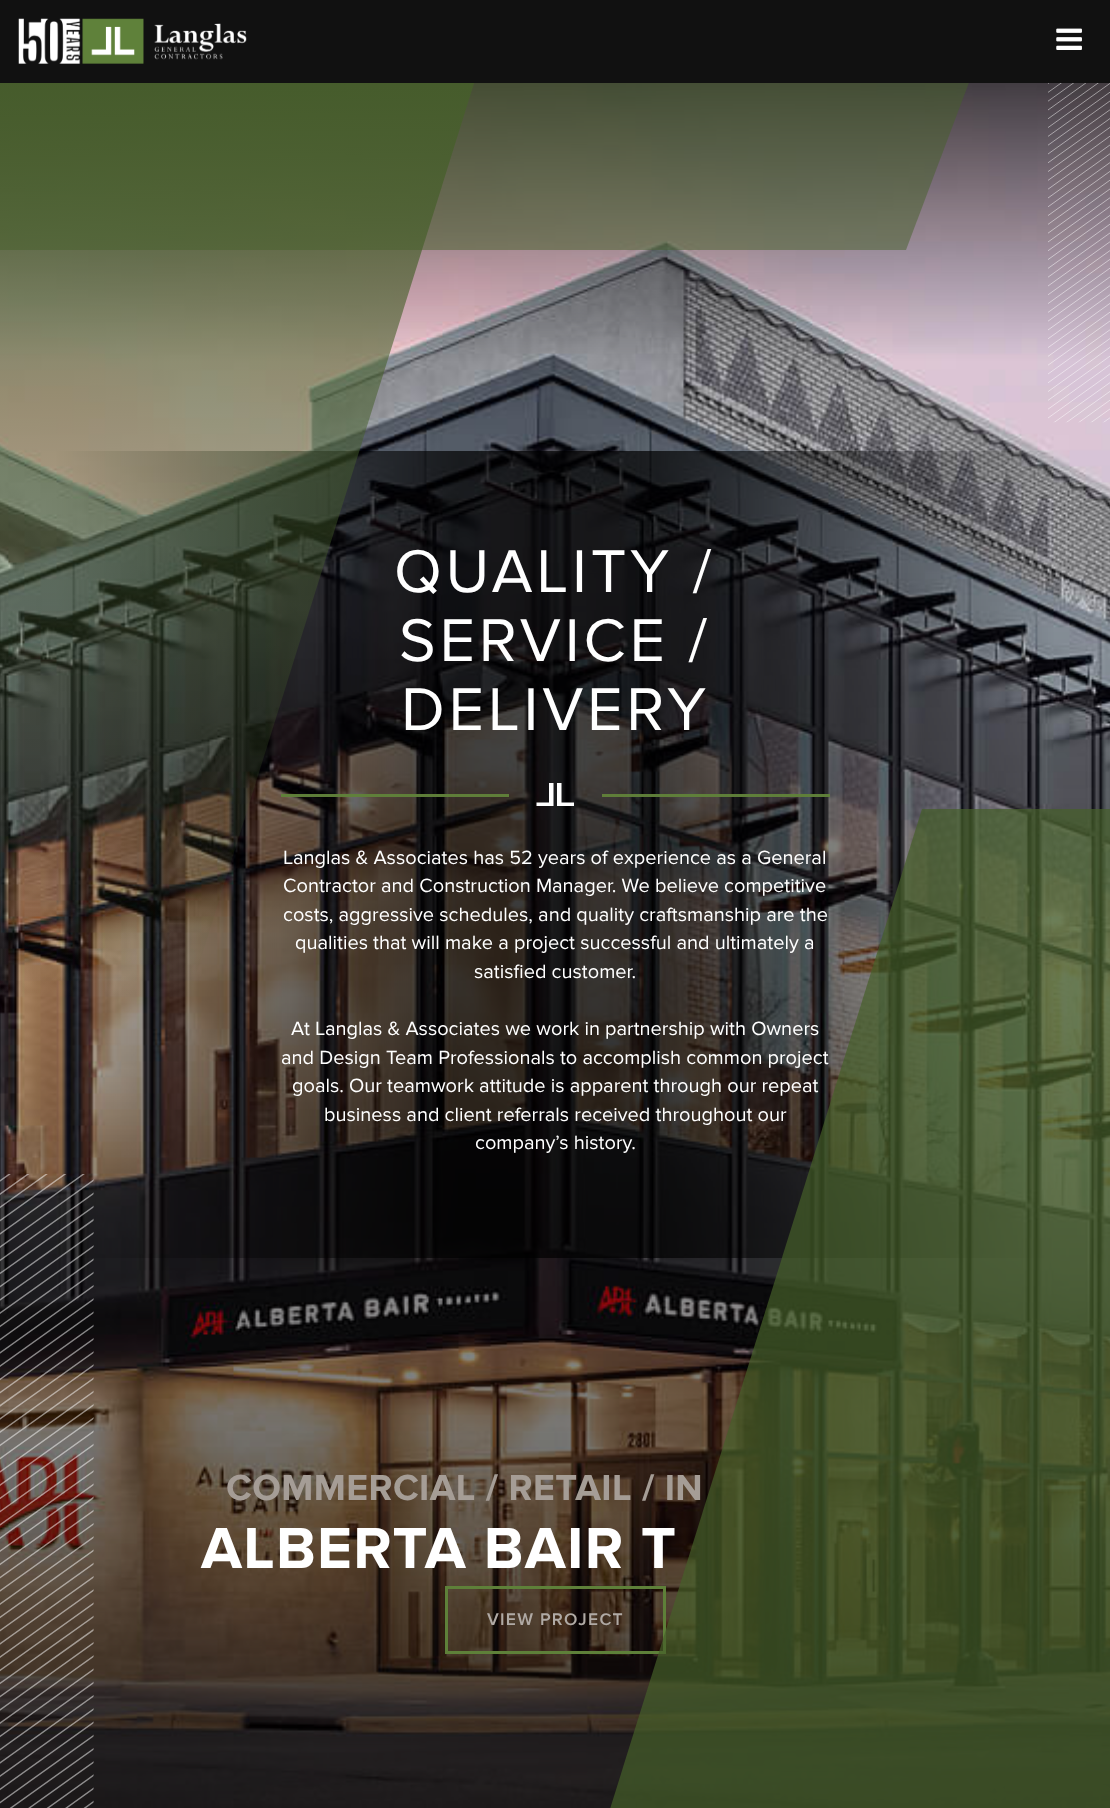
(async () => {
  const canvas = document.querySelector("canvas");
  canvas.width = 1110;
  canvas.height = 1808;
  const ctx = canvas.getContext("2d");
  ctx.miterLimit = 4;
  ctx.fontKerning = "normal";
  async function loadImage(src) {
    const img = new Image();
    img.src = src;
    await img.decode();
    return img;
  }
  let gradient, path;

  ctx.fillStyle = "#ffffff";
  ctx.fillRect(0, 0, 1110, 1808);
  ctx.drawImage(await loadImage("img/5.png"), 0, 83, 1110, 1725);
  ctx.fillStyle = "rgba(70, 95, 42, 0.5)";
  path = new Path2D("M0 0V250H906L1000 0Z");
  ctx.fill(path);
  ctx.drawImage(await loadImage("img/3.png"), 1048, 83, 62, 340);
  ctx.drawImage(await loadImage("img/4.png"), 0, 1174, 94, 634);
  ctx.fillStyle = "rgba(96, 129, 58, 0.97)";
  ctx.fillRect(281, 794, 228, 3);
  ctx.fillRect(602, 794, 228, 3);
  ctx.save();
  ctx.beginPath();
  ctx.rect(280, 783, 550, 23);
  ctx.clip();
  ctx.fillStyle = "#ffffff";
  path = new Path2D("M549 782.5V802.5H536.5V807H553.5V782.5ZM561.5 782.5V802.5H574V807H557V782.5Z");
  ctx.fill(path);
  ctx.restore();
  ctx.strokeStyle = "#5e8039";
  ctx.lineWidth = 3;
  ctx.strokeRect(446.5, 1587.5, 218, 65);
  ctx.letterSpacing = "3.75px";
  ctx.font = "62.5px Proxima Nova";
  ctx.fillStyle = "#ffffff";
  for (const [text, x, y] of [
    ["QUALITY /", 394, 592],
    ["SERVICE /", 399, 661],
    ["DELIVERY", 401, 730],
  ]) {
    ctx.fillText(text, x, y);
  }
  ctx.letterSpacing = "0px";
  ctx.font = "20px Proxima Nova";
  for (const [text, x, y] of [
    ["Langlas & Associates has 52 years of experience as a General", 283, 864],
    ["Contractor and Construction Manager. We believe competitive", 283, 892],
    ["costs, aggressive schedules, and quality craftsmanship are the", 283, 921],
    ["qualities that will make a project successful and ultimately a", 295, 949],
    ["satisfied customer.", 474, 978],
  ]) {
    ctx.fillText(text, x, y);
  }
  gradient = ctx.createLinearGradient(250, 1000, 250, 0);
  gradient.addColorStop(0, "rgba(70, 95, 42, 0)");
  gradient.addColorStop(1, "rgba(70, 95, 42, 0.9)");
  ctx.fillStyle = gradient;
  path = new Path2D("M0 0V1000H188L500 0Z");
  ctx.fill(path);
  ctx.fillStyle = "#111111";
  ctx.fillRect(0, 0, 1110, 83);
  ctx.drawImage(await loadImage("img/2.png"), 1056, 28, 26, 22);
  ctx.drawImage(await loadImage("img/1.png"), 18, 18, 229, 46);
  ctx.fillStyle = "#ffffff";
  for (const [text, x, y] of [
    ["At Langlas & Associates we work in partnership with Owners", 291, 1035],
    ["and Design Team Professionals to accomplish common project", 281, 1064],
    ["goals. Our teamwork attitude is apparent through our repeat", 292, 1092],
    ["business and client referrals received throughout our", 324, 1121],
    ["company’s history.", 475, 1149],
  ]) {
    ctx.fillText(text, x, y);
  }
  ctx.letterSpacing = "0.4px";
  ctx.font = "bold 37.5px Proxima Nova";
  ctx.fillStyle = "#a59d96";
  ctx.fillText("COMMERCIAL / RETAIL / IN", 226, 1500);
  ctx.letterSpacing = "1.25px";
  ctx.font = "bold 60px Proxima Nova";
  ctx.fillStyle = "#ffffff";
  ctx.fillText("ALBERTA BAIR T", 201, 1568);
  ctx.font = "600 17.5px Proxima Nova";
  ctx.fillStyle = "#b0aaa5";
  ctx.fillText("VIEW PROJECT", 487, 1625);
  ctx.fillStyle = "rgba(70, 95, 42, 0.7)";
  path = new Path2D("M1110 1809V809H922L610 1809Z");
  ctx.fill(path);
})();
